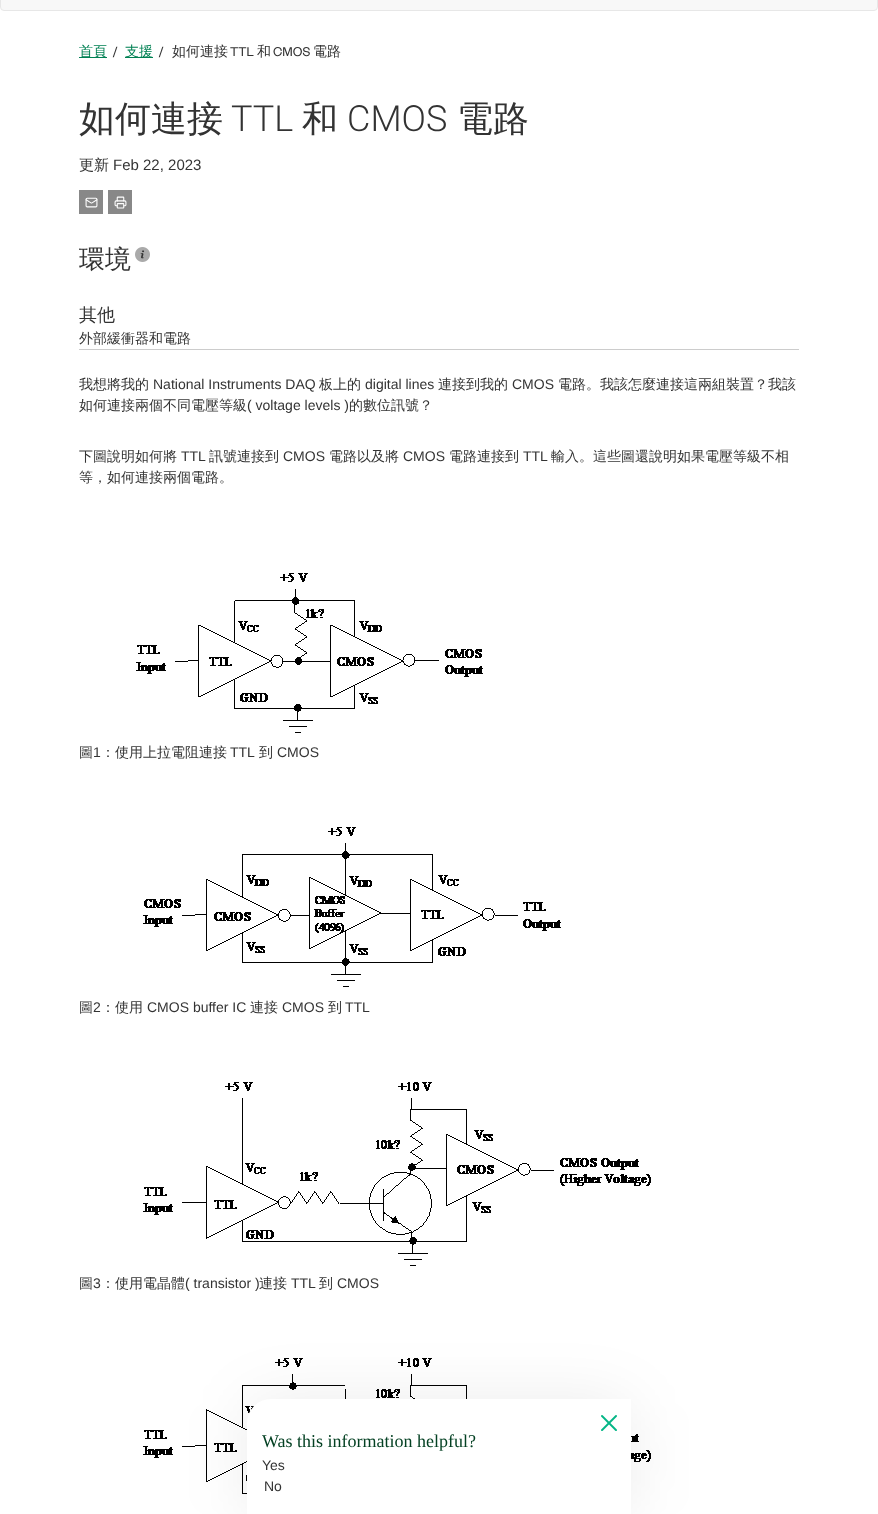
(async () => {
  const canvas = document.querySelector("canvas");
  canvas.width = 878;
  canvas.height = 1514;
  const ctx = canvas.getContext("2d");
  ctx.miterLimit = 4;
  ctx.fontKerning = "normal";
  async function loadImage(src) {
    const img = new Image();
    img.src = src;
    await img.decode();
    return img;
  }

  ctx.fillStyle = "#ffffff";
  ctx.fillRect(0, 0, 878, 1514);
  ctx.fillStyle = "#f8f8f8";
  ctx.beginPath();
  ctx.roundRect(0.5, -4.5, 877, 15, 3.5);
  ctx.fill();
  ctx.strokeStyle = "#e7e7e7";
  ctx.stroke();
  for (const [x, y, w, h, color] of [
    [79, 57, 28, 1, "#008053"],
    [125, 57, 28, 1, "#008053"],
    [79, 190, 24, 24, "#888888"],
  ]) {
    ctx.fillStyle = color;
    ctx.fillRect(x, y, w, h);
  }
  ctx.drawImage(await loadImage("img/1.png"), 85, 197, 13, 11);
  ctx.fillRect(108, 190, 24, 24);
  ctx.drawImage(await loadImage("img/2.png"), 114, 196, 13, 13);
  ctx.fillStyle = "#333333";
  ctx.beginPath();
  ctx.arc(143, 255, 6, 0, Math.PI * 2);
  ctx.fill();
  ctx.drawImage(await loadImage("img/3.png"), 135, 247, 15, 15);
  ctx.fillStyle = "#cccccc";
  ctx.fillRect(79, 349, 720, 1);
  ctx.drawImage(await loadImage("img/4.png"), 136, 573, 347, 160);
  ctx.drawImage(await loadImage("img/5.png"), 143, 827, 418, 160);
  ctx.drawImage(await loadImage("img/6.png"), 143, 1082, 508, 184);
  ctx.drawImage(await loadImage("img/7.png"), 143, 1358, 508, 136);
  ctx.fillStyle = "rgba(0, 0, 0, 0.08)";
  ctx.filter = "blur(32px)";
  ctx.beginPath();
  ctx.roundRect(247, 1401, 384, 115, 24);
  ctx.fill();
  ctx.filter = "none";
  ctx.fillStyle = "#ffffff";
  ctx.beginPath();
  ctx.roundRect(247, 1399, 384, 115, [24, 0, 0, 0]);
  ctx.fill();
  ctx.drawImage(await loadImage("img/8.png"), 601, 1415, 16, 16);
  ctx.font = "500 14px WenQuanYi Zen Hei";
  ctx.fillStyle = "#008053";
  ctx.fillText("首頁", 79, 56);
  ctx.font = "14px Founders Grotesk";
  ctx.fillStyle = "#333333";
  ctx.fillText("/", 113, 56);
  ctx.font = "500 14px WenQuanYi Zen Hei";
  ctx.fillStyle = "#008053";
  ctx.fillText("支援", 125, 56);
  ctx.font = "14px Founders Grotesk";
  ctx.fillStyle = "#333333";
  ctx.fillText("/", 159, 56);
  ctx.font = "500 14px WenQuanYi Zen Hei";
  ctx.fillText("如何連接", 172, 56);
  ctx.font = "14px Founders Grotesk";
  ctx.fillText("TTL", 230, 56);
  ctx.font = "500 14px WenQuanYi Zen Hei";
  ctx.fillText("和", 257, 56);
  ctx.font = "14px Founders Grotesk";
  ctx.fillText("CMOS", 273, 56);
  ctx.font = "500 14px WenQuanYi Zen Hei";
  ctx.fillText("電路", 313, 56);
  ctx.font = "500 36px WenQuanYi Zen Hei";
  ctx.fillText("如何連接", 79, 131);
  ctx.font = "300 36px Roboto";
  ctx.fillText("TTL", 231, 131);
  ctx.font = "500 36px WenQuanYi Zen Hei";
  ctx.fillText("和", 302, 131);
  ctx.font = "300 36px Roboto";
  ctx.fillText("CMOS", 347, 131);
  ctx.font = "500 36px WenQuanYi Zen Hei";
  ctx.fillText("電路", 457, 131);
  ctx.font = "500 15px WenQuanYi Zen Hei";
  ctx.fillText("更新", 79, 170);
  ctx.font = "15px Liberation Sans";
  ctx.fillText("Feb 22, 2023", 113, 170);
  ctx.font = "500 26px WenQuanYi Zen Hei";
  ctx.fillText("環境", 79, 268);
  ctx.font = "500 18px WenQuanYi Zen Hei";
  ctx.fillText("其他", 79, 321);
  ctx.font = "500 14px WenQuanYi Zen Hei";
  ctx.fillText("外部緩衝器和電路", 79, 343);
  ctx.fillText("我想將我的", 79, 389);
  ctx.font = "14px Liberation Sans";
  ctx.fillText("National Instruments DAQ", 153, 389);
  ctx.font = "500 14px WenQuanYi Zen Hei";
  ctx.fillText("板上的", 319, 389);
  ctx.font = "14px Liberation Sans";
  ctx.fillText("digital lines", 365, 389);
  ctx.font = "500 14px WenQuanYi Zen Hei";
  ctx.fillText("連接到我的", 438, 389);
  ctx.font = "14px Liberation Sans";
  ctx.fillText("CMOS", 512, 389);
  ctx.font = "500 14px WenQuanYi Zen Hei";
  ctx.fillText("電路。我該怎麼連接這兩組裝置？我該", 558, 389);
  ctx.fillText("如何連接兩個不同電壓等級", 79, 410);
  ctx.font = "14px Liberation Sans";
  ctx.fillText("( voltage levels )", 247, 410);
  ctx.font = "500 14px WenQuanYi Zen Hei";
  ctx.fillText("的數位訊號？", 349, 410);
  ctx.fillText("下圖說明如何將", 79, 461);
  ctx.font = "14px Liberation Sans";
  ctx.fillText("TTL", 181, 461);
  ctx.font = "500 14px WenQuanYi Zen Hei";
  ctx.fillText("訊號連接到", 209, 461);
  ctx.font = "14px Liberation Sans";
  ctx.fillText("CMOS", 283, 461);
  ctx.font = "500 14px WenQuanYi Zen Hei";
  ctx.fillText("電路以及將", 329, 461);
  ctx.font = "14px Liberation Sans";
  ctx.fillText("CMOS", 403, 461);
  ctx.font = "500 14px WenQuanYi Zen Hei";
  ctx.fillText("電路連接到", 449, 461);
  ctx.font = "14px Liberation Sans";
  ctx.fillText("TTL", 523, 461);
  ctx.font = "500 14px WenQuanYi Zen Hei";
  for (const [text, x, y] of [
    ["輸入。這些圖還說明如果電壓等級不相", 551, 461],
    ["等，如何連接兩個電路。", 79, 482],
    ["圖", 79, 757],
  ]) {
    ctx.fillText(text, x, y);
  }
  ctx.font = "14px Liberation Sans";
  ctx.fillText("1", 93, 757);
  ctx.font = "500 14px WenQuanYi Zen Hei";
  ctx.fillText("：使用上拉電阻連接", 101, 757);
  ctx.font = "14px Liberation Sans";
  ctx.fillText("TTL", 230, 757);
  ctx.font = "500 14px WenQuanYi Zen Hei";
  ctx.fillText("到", 259, 757);
  ctx.font = "14px Liberation Sans";
  ctx.fillText("CMOS", 277, 757);
  ctx.font = "500 14px WenQuanYi Zen Hei";
  ctx.fillText("圖", 79, 1012);
  ctx.font = "14px Liberation Sans";
  ctx.fillText("2", 93, 1012);
  ctx.font = "500 14px WenQuanYi Zen Hei";
  ctx.fillText("：使用", 101, 1012);
  ctx.font = "14px Liberation Sans";
  ctx.fillText("CMOS buffer IC", 147, 1012);
  ctx.font = "500 14px WenQuanYi Zen Hei";
  ctx.fillText("連接", 250, 1012);
  ctx.font = "14px Liberation Sans";
  ctx.fillText("CMOS", 282, 1012);
  ctx.font = "500 14px WenQuanYi Zen Hei";
  ctx.fillText("到", 328, 1012);
  ctx.font = "14px Liberation Sans";
  ctx.fillText("TTL", 345, 1012);
  ctx.font = "500 14px WenQuanYi Zen Hei";
  ctx.fillText("圖", 79, 1288);
  ctx.font = "14px Liberation Sans";
  ctx.fillText("3", 93, 1288);
  ctx.font = "500 14px WenQuanYi Zen Hei";
  ctx.fillText("：使用電晶體", 101, 1288);
  ctx.font = "14px Liberation Sans";
  ctx.fillText("( transistor )", 185, 1288);
  ctx.font = "500 14px WenQuanYi Zen Hei";
  ctx.fillText("連接", 259, 1288);
  ctx.font = "14px Liberation Sans";
  ctx.fillText("TTL", 291, 1288);
  ctx.font = "500 14px WenQuanYi Zen Hei";
  ctx.fillText("到", 319, 1288);
  ctx.font = "14px Liberation Sans";
  ctx.fillText("CMOS", 337, 1288);
  ctx.font = "18px Liberation Serif";
  ctx.fillStyle = "#044123";
  ctx.fillText("Was this information helpful?", 262, 1447);
  ctx.font = "14px Liberation Sans";
  ctx.fillStyle = "#333333";
  ctx.fillText("Yes", 262, 1470);
  ctx.fillText("No", 264, 1491);
})();
